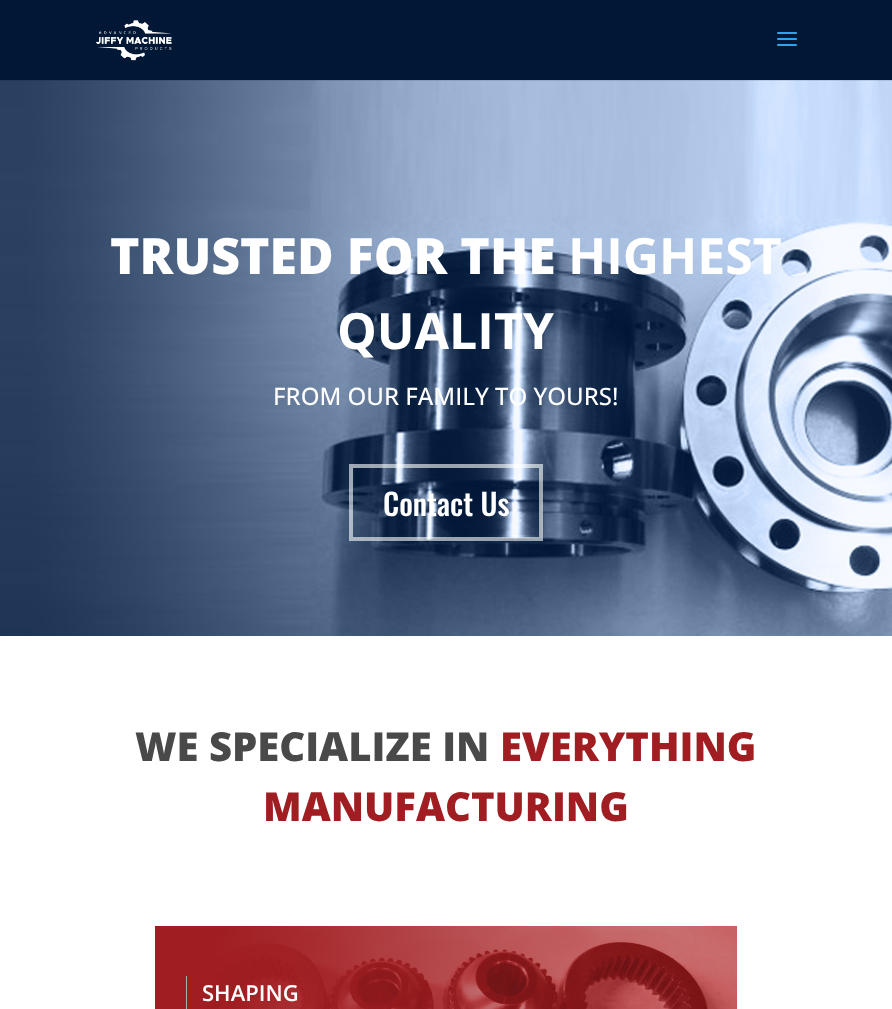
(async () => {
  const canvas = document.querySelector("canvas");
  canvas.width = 892;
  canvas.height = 1009;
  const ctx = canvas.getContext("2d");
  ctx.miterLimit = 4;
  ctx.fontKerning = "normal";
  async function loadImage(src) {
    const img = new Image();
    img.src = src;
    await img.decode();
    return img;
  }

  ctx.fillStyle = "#ffffff";
  ctx.fillRect(0, 0, 892, 1009);
  ctx.drawImage(await loadImage("img/3.png"), 0, 80, 892, 556);
  ctx.fillStyle = "rgba(0, 0, 0, 0.1)";
  ctx.fillRect(0, 80, 892, 1);
  ctx.fillStyle = "#001835";
  ctx.fillRect(0, 0, 892, 80);
  ctx.drawImage(await loadImage("img/1.png"), 96, 20, 76, 41);
  ctx.drawImage(await loadImage("img/2.png"), 777, 32, 20, 14);
  ctx.strokeStyle = "rgba(255, 255, 255, 0.6)";
  ctx.lineWidth = 4;
  ctx.strokeRect(351, 466, 190, 73);
  ctx.drawImage(await loadImage("img/4.png"), 155, 926, 582, 83);
  ctx.fillStyle = "#aeafaf";
  ctx.fillRect(186, 976, 1, 33);
  ctx.font = "800 50px Open Sans";
  ctx.fillStyle = "#ffffff";
  ctx.fillText("TRUSTED FOR THE", 110, 274);
  ctx.font = "bold 50px Open Sans";
  ctx.fillText("HIGHEST", 568, 274);
  ctx.fillText("QUALITY", 337, 349);
  ctx.font = "500 24px Open Sans";
  ctx.fillText("FROM OUR FAMILY TO YOURS!", 273, 405);
  ctx.font = "500 30px Oswald";
  ctx.fillText("Contact Us", 383, 516);
  ctx.font = "800 40px Open Sans";
  ctx.fillStyle = "#494949";
  ctx.fillText("WE SPECIALIZE IN", 135, 761);
  ctx.fillStyle = "#a01d21";
  ctx.fillText("EVERYTHING", 500, 761);
  ctx.fillText("MANUFACTURING", 263, 821);
  ctx.font = "600 22px Open Sans";
  ctx.fillStyle = "#ffffff";
  ctx.fillText("SHAPING", 202, 1001);
})();
